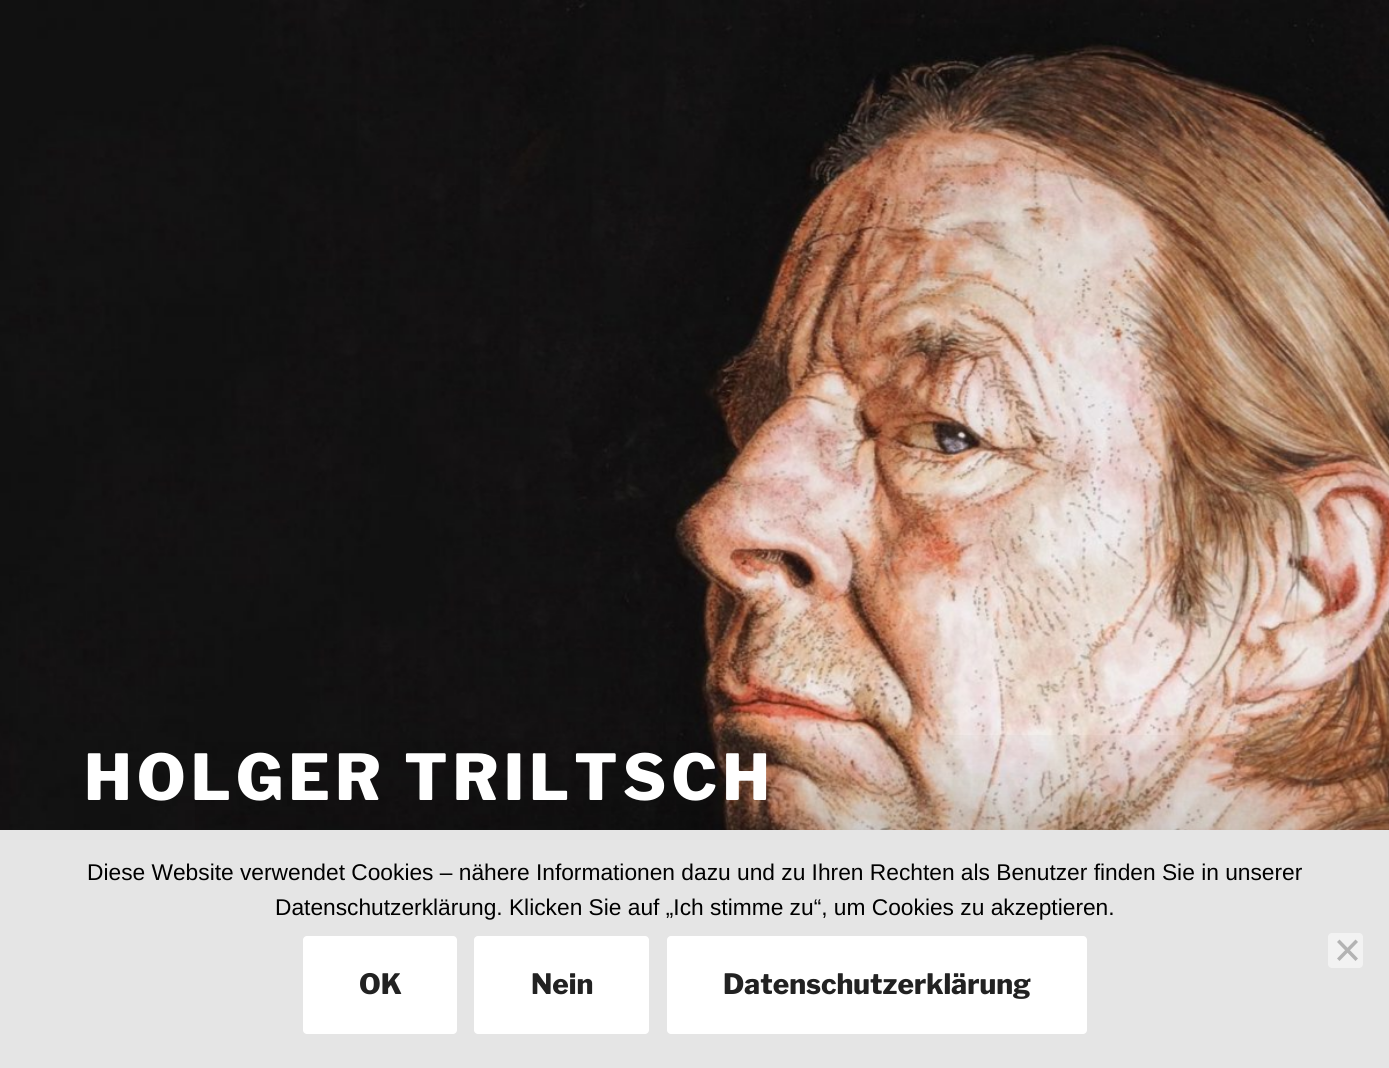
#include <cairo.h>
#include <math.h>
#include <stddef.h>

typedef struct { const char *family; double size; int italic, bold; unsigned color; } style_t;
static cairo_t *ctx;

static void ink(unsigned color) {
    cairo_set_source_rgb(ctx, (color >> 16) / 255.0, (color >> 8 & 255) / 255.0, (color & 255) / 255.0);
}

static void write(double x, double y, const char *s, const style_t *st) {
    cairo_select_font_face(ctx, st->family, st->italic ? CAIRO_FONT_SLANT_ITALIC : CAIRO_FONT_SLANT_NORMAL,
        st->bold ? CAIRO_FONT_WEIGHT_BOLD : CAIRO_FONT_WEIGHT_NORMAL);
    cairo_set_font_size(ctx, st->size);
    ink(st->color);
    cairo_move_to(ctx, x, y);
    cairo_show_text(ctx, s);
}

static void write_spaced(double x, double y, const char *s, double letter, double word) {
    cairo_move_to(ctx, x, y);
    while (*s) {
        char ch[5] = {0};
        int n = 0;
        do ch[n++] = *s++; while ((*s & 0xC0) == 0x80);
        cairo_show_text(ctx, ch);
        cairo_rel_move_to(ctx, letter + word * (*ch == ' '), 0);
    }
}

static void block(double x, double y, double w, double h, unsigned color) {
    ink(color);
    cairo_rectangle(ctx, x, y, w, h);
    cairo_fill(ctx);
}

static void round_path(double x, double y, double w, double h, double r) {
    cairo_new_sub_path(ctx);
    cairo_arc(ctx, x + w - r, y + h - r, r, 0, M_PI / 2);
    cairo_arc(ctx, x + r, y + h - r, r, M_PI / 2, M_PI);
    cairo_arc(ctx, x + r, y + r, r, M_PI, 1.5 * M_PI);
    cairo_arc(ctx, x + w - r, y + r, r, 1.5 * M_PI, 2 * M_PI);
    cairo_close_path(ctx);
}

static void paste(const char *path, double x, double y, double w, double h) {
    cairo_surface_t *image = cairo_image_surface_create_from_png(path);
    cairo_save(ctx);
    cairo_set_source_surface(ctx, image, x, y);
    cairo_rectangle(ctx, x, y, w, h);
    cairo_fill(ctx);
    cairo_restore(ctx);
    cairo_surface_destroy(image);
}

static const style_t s1 = {"Liberation Sans", 22.75, 0, 0, 0x000000};
static const style_t s2 = {"Libre Franklin Thin", 28, 0, 0, 0x222222};

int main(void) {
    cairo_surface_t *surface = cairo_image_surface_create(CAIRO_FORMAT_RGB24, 1389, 1068);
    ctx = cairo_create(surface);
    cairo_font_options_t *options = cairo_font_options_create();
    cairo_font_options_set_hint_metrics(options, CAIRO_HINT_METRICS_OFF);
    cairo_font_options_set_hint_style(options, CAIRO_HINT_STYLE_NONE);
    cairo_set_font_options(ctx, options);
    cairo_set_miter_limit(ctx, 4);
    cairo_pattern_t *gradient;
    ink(0xffffff);
    cairo_paint(ctx);
    paste("pic1.png", 0, 0, 1389, 830);
    gradient = cairo_pattern_create_linear(695, 716, 695, 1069);
    cairo_pattern_add_color_stop_rgba(gradient, 0, 0, 0, 0, 0);
    cairo_pattern_add_color_stop_rgba(gradient, 0.75, 0, 0, 0, 0.3);
    cairo_pattern_add_color_stop_rgba(gradient, 1, 0, 0, 0, 0.3);
    cairo_set_source(ctx, gradient);
    cairo_pattern_destroy(gradient);
    cairo_rectangle(ctx, 195, 735, 1194, 95);
    cairo_fill(ctx);
    cairo_select_font_face(ctx, "Libre Franklin Thin", CAIRO_FONT_SLANT_NORMAL, CAIRO_FONT_WEIGHT_NORMAL);
    cairo_set_font_size(ctx, 63);
    ink(0xffffff);
    write_spaced(84, 800, "HOLGER TRILTSCH", 5, 0);
    block(0, 830, 1389, 238, 0xe5e5e5);
    write(87, 880, "Diese Website verwendet Cookies – nähere Informationen dazu und zu Ihren Rechten als Benutzer finden Sie in unserer", &s1);
    write(275, 915, "Datenschutzerklärung. Klicken Sie auf „Ich stimme zu“, um Cookies zu akzeptieren.", &s1);
    ink(0xf2f2f2);
    round_path(1328, 933, 35, 35, 4);
    cairo_fill(ctx);
    ink(0xb3b3b3);
    cairo_new_path(ctx);
    cairo_move_to(ctx, 1355.5, 939.5);
    cairo_line_to(ctx, 1358, 942);
    cairo_line_to(ctx, 1339.5, 961);
    cairo_line_to(ctx, 1337, 958.5);
    cairo_close_path(ctx);
    cairo_fill(ctx);
    cairo_new_path(ctx);
    cairo_move_to(ctx, 1337, 942);
    cairo_line_to(ctx, 1339.5, 939.5);
    cairo_line_to(ctx, 1358, 958.5);
    cairo_line_to(ctx, 1355.5, 961);
    cairo_close_path(ctx);
    cairo_fill(ctx);
    ink(0xffffff);
    round_path(303, 936, 154, 98, 4);
    cairo_fill(ctx);
    write(359, 994, "OK", &s2);
    ink(0xffffff);
    round_path(474, 936, 175, 98, 4);
    cairo_fill(ctx);
    write(531, 994, "Nein", &s2);
    ink(0xffffff);
    round_path(667, 936, 420, 98, 4);
    cairo_fill(ctx);
    write(723, 994, "Datenschutzerklärung", &s2);
    cairo_surface_write_to_png(surface, "screenshot.png");
    cairo_font_options_destroy(options);
    cairo_destroy(ctx);
    cairo_surface_destroy(surface);
    return 0;
}
